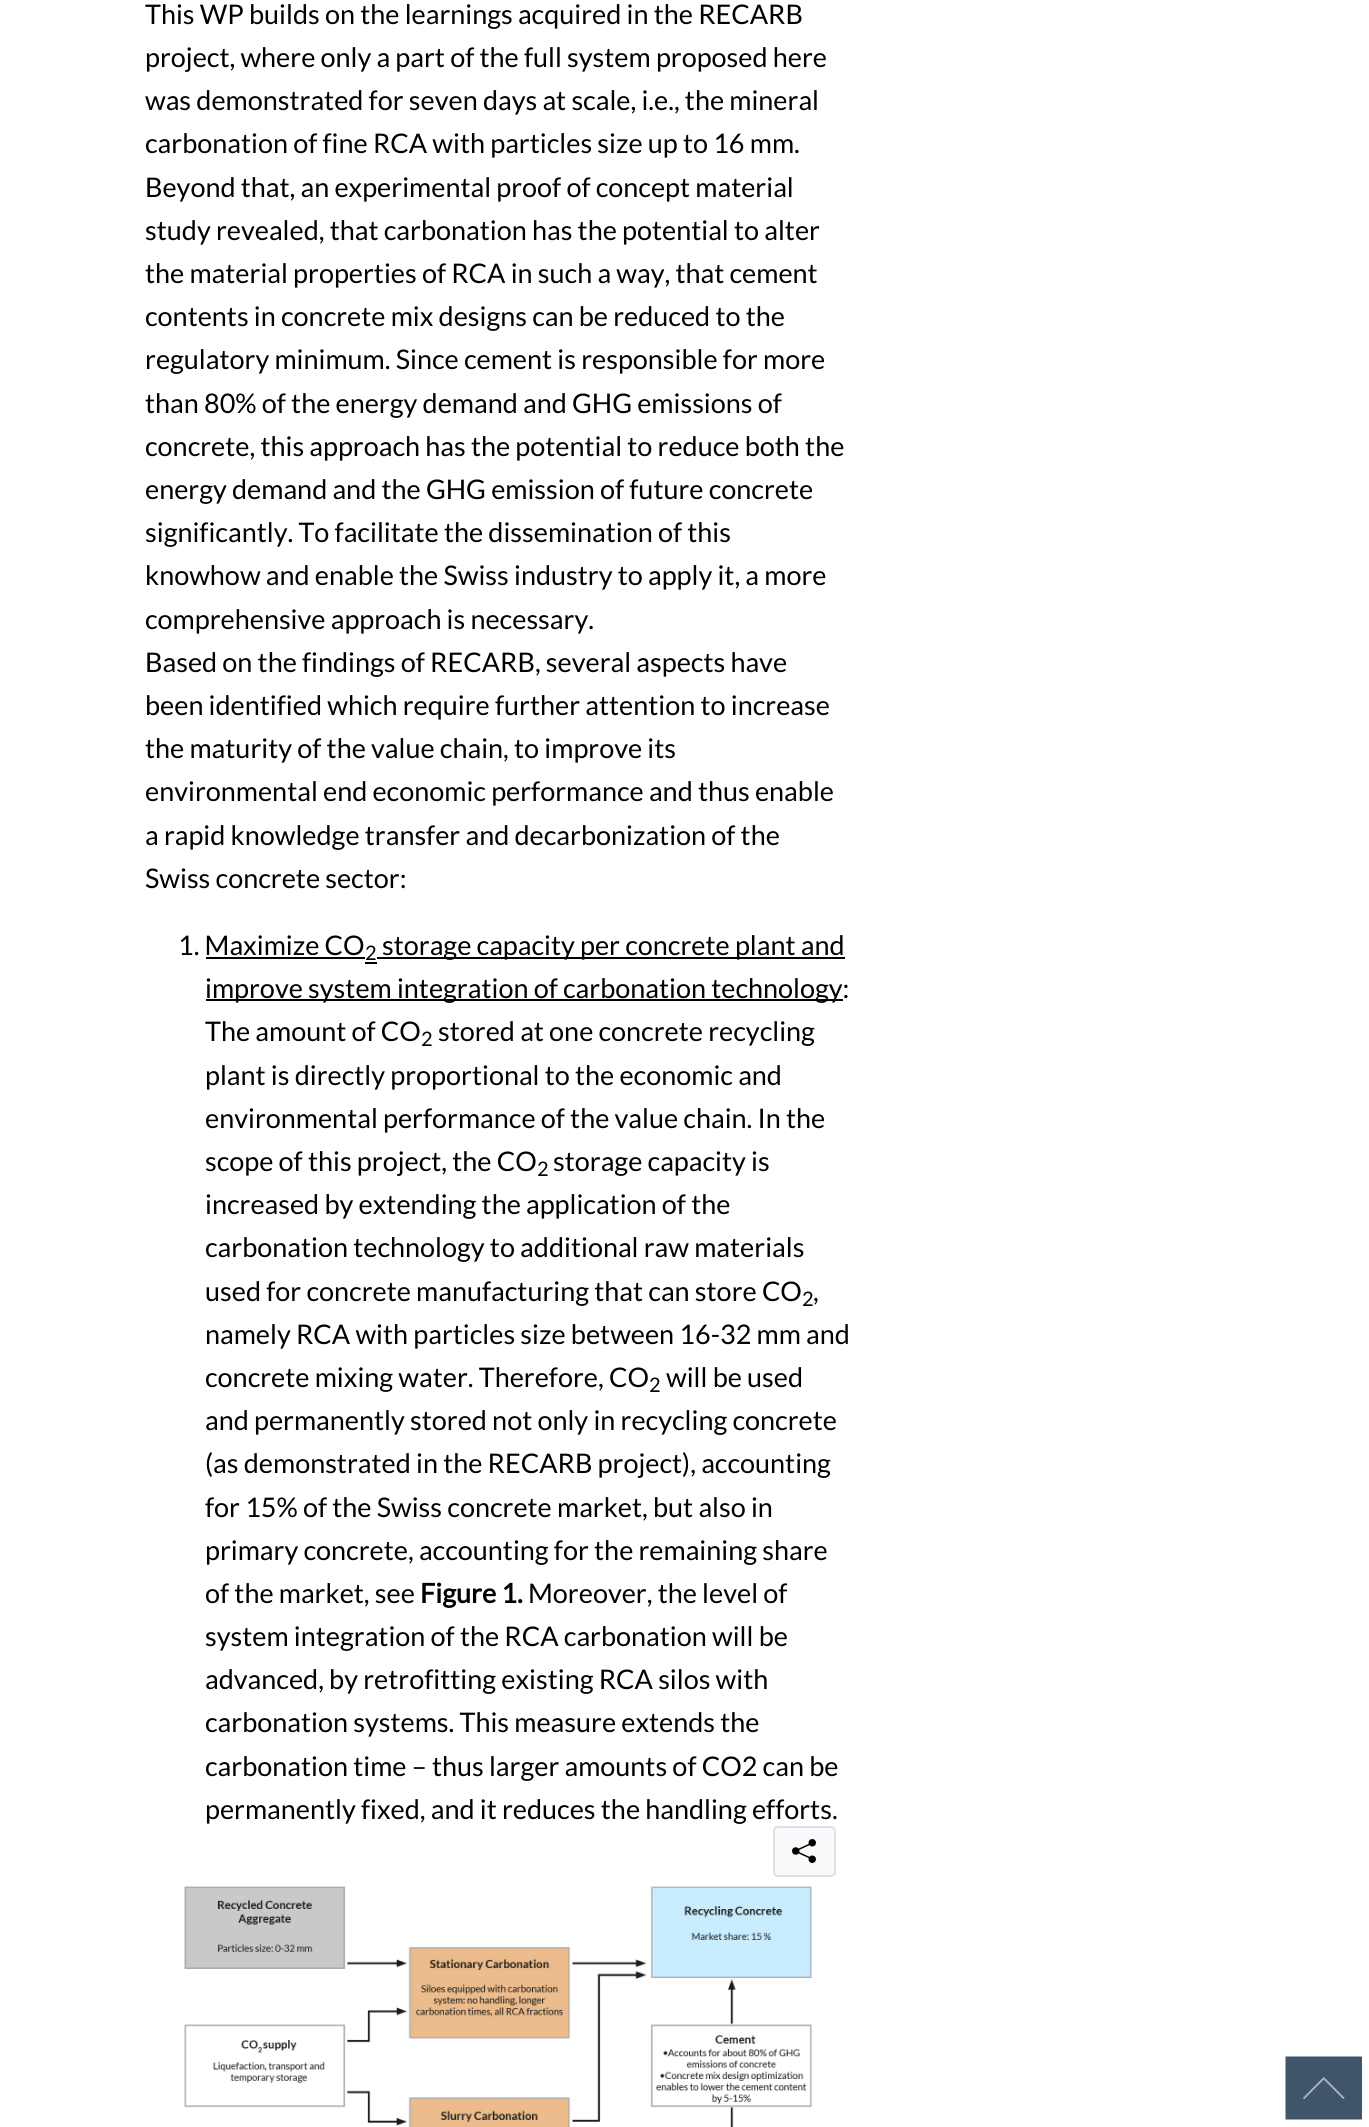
#include <cairo.h>
#include <math.h>
#include <stddef.h>

typedef struct { const char *family; double size; int italic, bold; unsigned color; } style_t;
static cairo_t *ctx;

static void ink(unsigned color) {
    cairo_set_source_rgb(ctx, (color >> 16) / 255.0, (color >> 8 & 255) / 255.0, (color & 255) / 255.0);
}

static void write(double x, double y, const char *s, const style_t *st) {
    cairo_select_font_face(ctx, st->family, st->italic ? CAIRO_FONT_SLANT_ITALIC : CAIRO_FONT_SLANT_NORMAL,
        st->bold ? CAIRO_FONT_WEIGHT_BOLD : CAIRO_FONT_WEIGHT_NORMAL);
    cairo_set_font_size(ctx, st->size);
    ink(st->color);
    cairo_move_to(ctx, x, y);
    cairo_show_text(ctx, s);
}

static void block(double x, double y, double w, double h, unsigned color) {
    ink(color);
    cairo_rectangle(ctx, x, y, w, h);
    cairo_fill(ctx);
}

static void round_path(double x, double y, double w, double h, double r) {
    cairo_new_sub_path(ctx);
    cairo_arc(ctx, x + w - r, y + h - r, r, 0, M_PI / 2);
    cairo_arc(ctx, x + r, y + h - r, r, M_PI / 2, M_PI);
    cairo_arc(ctx, x + r, y + r, r, M_PI, 1.5 * M_PI);
    cairo_arc(ctx, x + w - r, y + r, r, 1.5 * M_PI, 2 * M_PI);
    cairo_close_path(ctx);
}

static void paste(const char *path, double x, double y, double w, double h) {
    cairo_surface_t *image = cairo_image_surface_create_from_png(path);
    cairo_save(ctx);
    cairo_set_source_surface(ctx, image, x, y);
    cairo_rectangle(ctx, x, y, w, h);
    cairo_fill(ctx);
    cairo_restore(ctx);
    cairo_surface_destroy(image);
}

static const style_t s1 = {"Lato", 27, 0, 0, 0x000000};
static const style_t s2 = {"Lato", 20, 0, 0, 0x000000};
static const style_t s3 = {"Lato", 27, 0, 1, 0x000000};

int main(void) {
    cairo_surface_t *surface = cairo_image_surface_create(CAIRO_FORMAT_RGB24, 1369, 2127);
    ctx = cairo_create(surface);
    cairo_font_options_t *options = cairo_font_options_create();
    cairo_font_options_set_hint_metrics(options, CAIRO_HINT_METRICS_OFF);
    cairo_font_options_set_hint_style(options, CAIRO_HINT_STYLE_NONE);
    cairo_set_font_options(ctx, options);
    cairo_set_miter_limit(ctx, 4);
    ink(0xffffff);
    cairo_paint(ctx);
    write(145, 24, "This WP builds on the learnings acquired in the RECARB", &s1);
    write(145, 67, "project, where only a part of the full system proposed here", &s1);
    write(145, 110, "was demonstrated for seven days at scale, i.e., the mineral", &s1);
    write(145, 153, "carbonation of fine RCA with particles size up to 16 mm.", &s1);
    write(145, 197, "Beyond that, an experimental proof of concept material", &s1);
    write(145, 240, "study revealed, that carbonation has the potential to alter", &s1);
    write(145, 283, "the material properties of RCA in such a way, that cement", &s1);
    write(145, 326, "contents in concrete mix designs can be reduced to the", &s1);
    write(145, 369, "regulatory minimum. Since cement is responsible for more", &s1);
    write(145, 413, "than 80% of the energy demand and GHG emissions of", &s1);
    write(145, 456, "concrete, this approach has the potential to reduce both the", &s1);
    write(145, 499, "energy demand and the GHG emission of future concrete", &s1);
    write(145, 542, "significantly. To facilitate the dissemination of this", &s1);
    write(145, 585, "knowhow and enable the Swiss industry to apply it, a more", &s1);
    write(145, 629, "comprehensive approach is necessary.", &s1);
    write(145, 672, "Based on the findings of RECARB, several aspects have", &s1);
    write(145, 715, "been identified which require further attention to increase", &s1);
    write(145, 758, "the maturity of the value chain, to improve its", &s1);
    write(145, 801, "environmental end economic performance and thus enable", &s1);
    write(145, 845, "a rapid knowledge transfer and decarbonization of the", &s1);
    write(145, 888, "Swiss concrete sector:", &s1);
    write(178, 955, "1. Maximize CO", &s1);
    write(365, 960, "2", &s2);
    block(365, 962, 12, 2, 0x000000);
    block(377, 957, 468, 2, 0x000000);
    write(382, 955, "storage capacity per concrete plant and", &s1);
    block(206, 957, 159, 2, 0x000000);
    block(206, 999, 637, 2, 0x000000);
    write(205, 998, "improve system integration of carbonation technology:", &s1);
    write(205, 1041, "The amount of CO", &s1);
    write(421, 1046, "2", &s2);
    write(438, 1041, "stored at one concrete recycling", &s1);
    write(205, 1085, "plant is directly proportional to the economic and", &s1);
    write(205, 1128, "environmental performance of the value chain. In the", &s1);
    write(205, 1171, "scope of this project, the CO", &s1);
    write(537, 1176, "2", &s2);
    write(553, 1171, "storage capacity is", &s1);
    write(205, 1214, "increased by extending the application of the", &s1);
    write(205, 1257, "carbonation technology to additional raw materials", &s1);
    write(205, 1301, "used for concrete manufacturing that can store CO", &s1);
    write(802, 1306, "2", &s2);
    write(813, 1301, ",", &s1);
    write(205, 1344, "namely RCA with particles size between 16-32 mm and", &s1);
    write(205, 1387, "concrete mixing water. Therefore, CO", &s1);
    write(649, 1392, "2", &s2);
    write(666, 1387, "will be used", &s1);
    write(205, 1430, "and permanently stored not only in recycling concrete", &s1);
    write(205, 1473, "(as demonstrated in the RECARB project), accounting", &s1);
    write(205, 1517, "for 15% of the Swiss concrete market, but also in", &s1);
    write(205, 1560, "primary concrete, accounting for the remaining share", &s1);
    write(205, 1603, "of the market, see", &s1);
    write(420, 1603, "Figure 1.", &s3);
    write(528, 1603, "Moreover, the level of", &s1);
    write(205, 1646, "system integration of the RCA carbonation will be", &s1);
    write(205, 1689, "advanced, by retrofitting existing RCA silos with", &s1);
    write(205, 1732, "carbonation systems. This measure extends the", &s1);
    write(205, 1776, "carbonation time – thus larger amounts of CO2 can be", &s1);
    write(205, 1819, "permanently fixed, and it reduces the handling efforts.", &s1);
    ink(0xf8f9fa);
    round_path(774, 1827, 61, 49, 4);
    cairo_fill_preserve(ctx);
    ink(0xdee2e6);
    cairo_stroke(ctx);
    paste("pic1.png", 792, 1839, 24, 24);
    paste("pic2.png", 184, 1886, 628, 241);
    paste("pic3.png", 1285, 2056, 77, 64);
    cairo_surface_write_to_png(surface, "screenshot.png");
    cairo_font_options_destroy(options);
    cairo_destroy(ctx);
    cairo_surface_destroy(surface);
    return 0;
}
